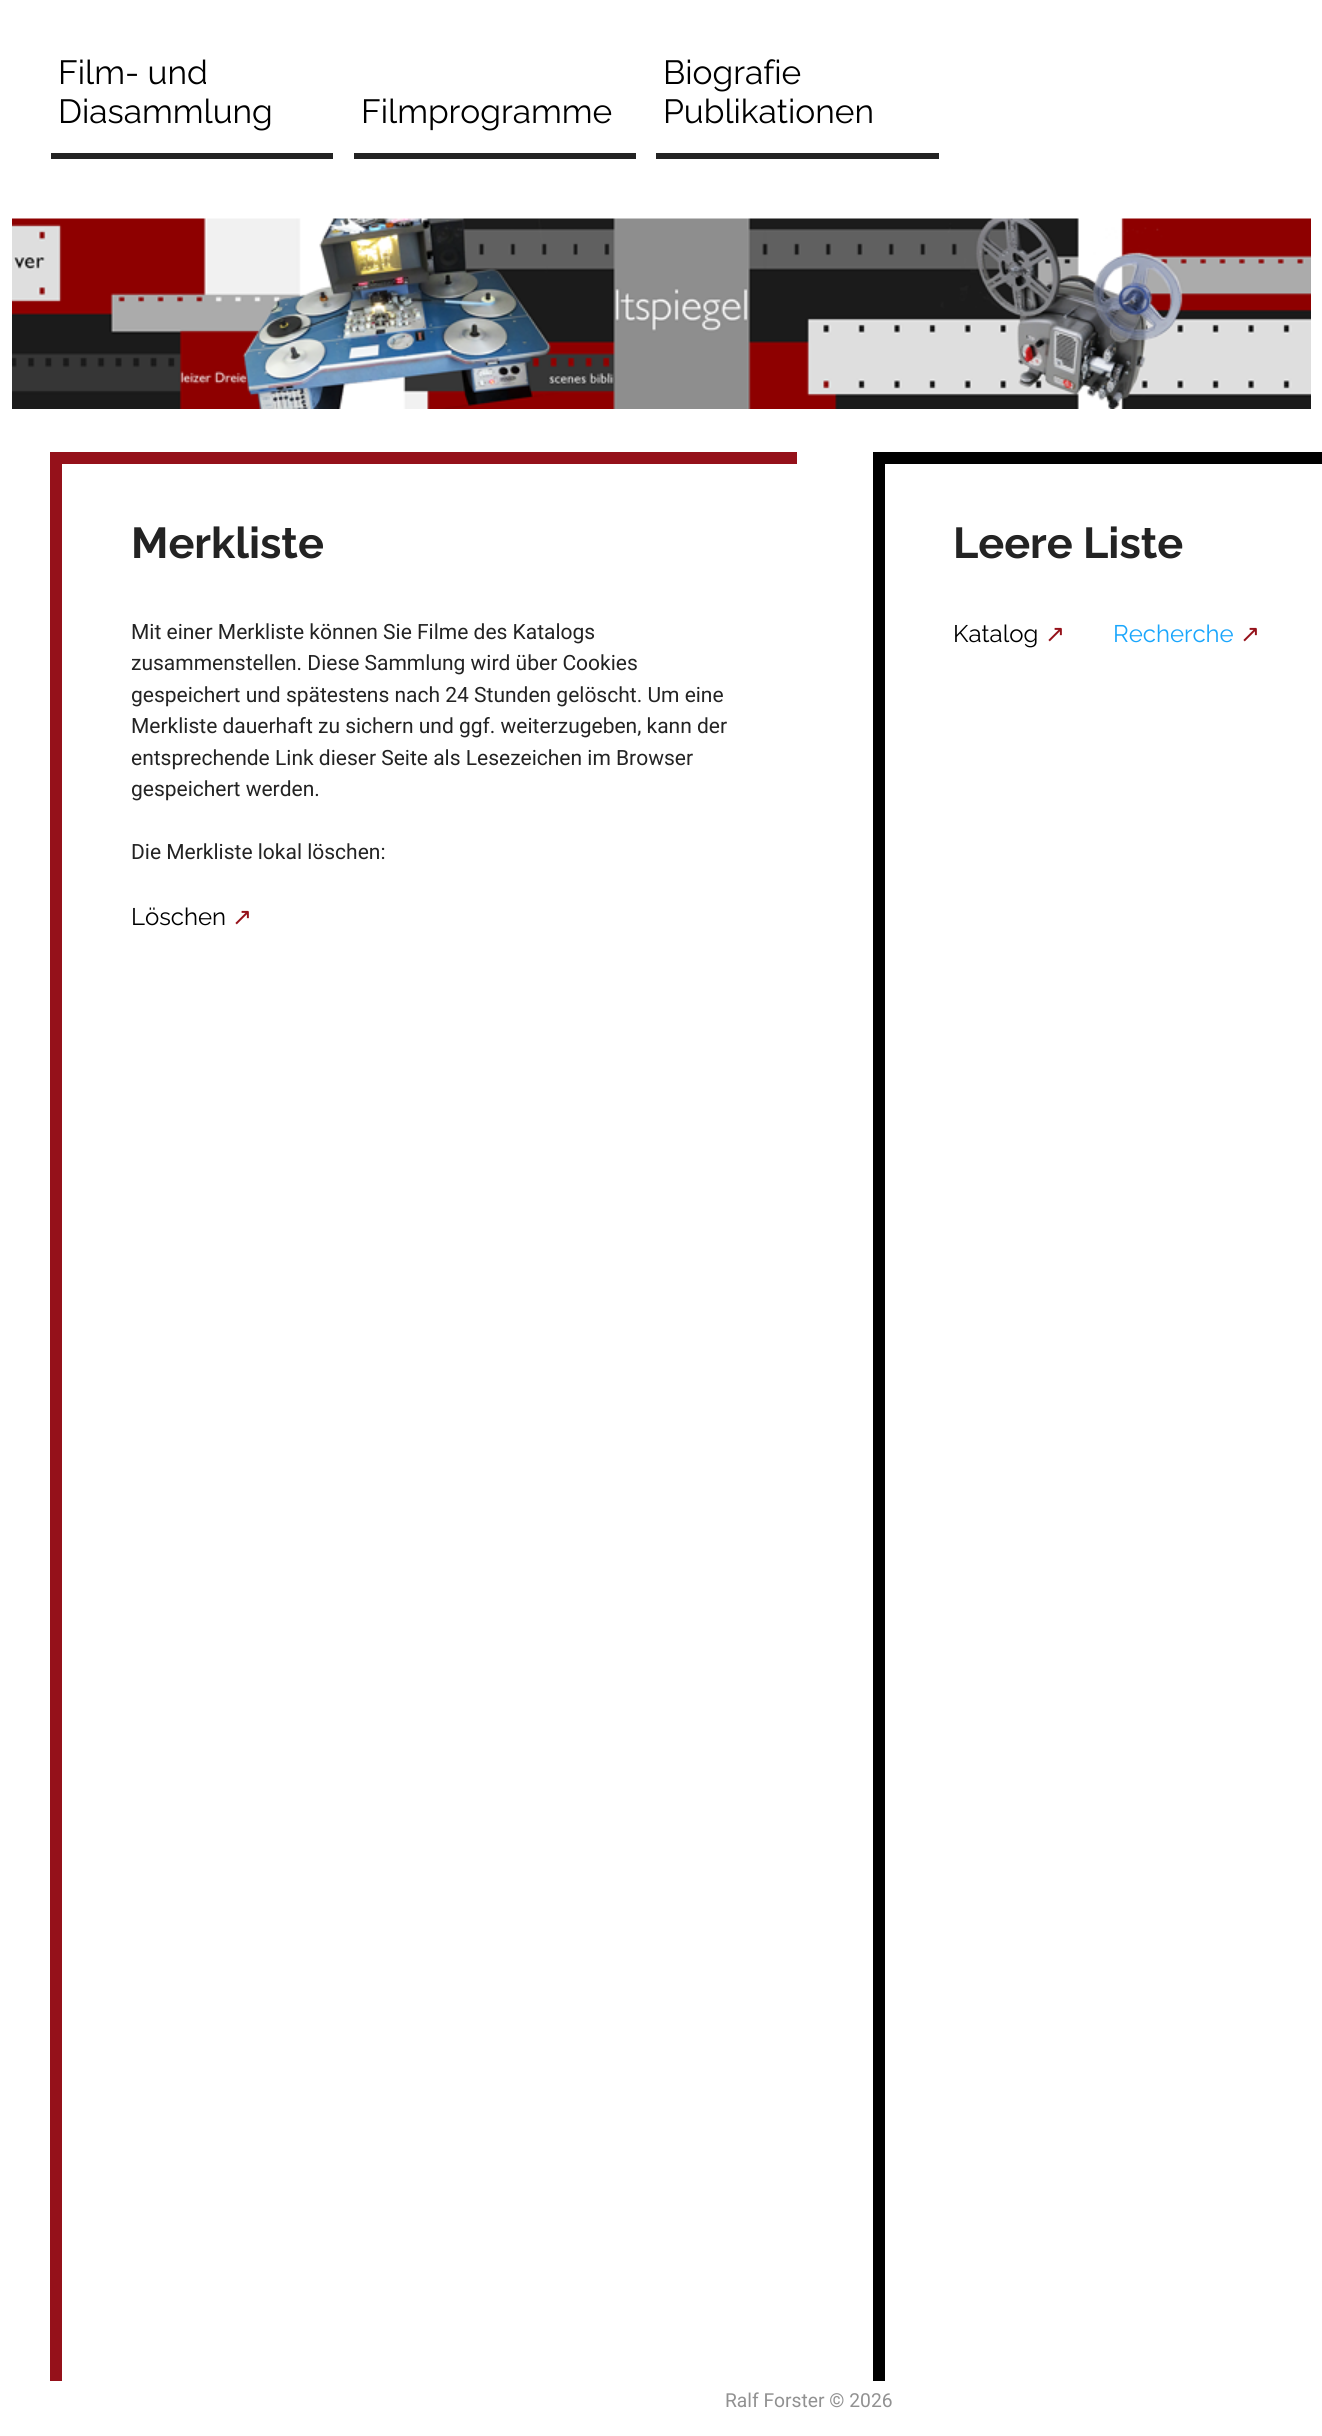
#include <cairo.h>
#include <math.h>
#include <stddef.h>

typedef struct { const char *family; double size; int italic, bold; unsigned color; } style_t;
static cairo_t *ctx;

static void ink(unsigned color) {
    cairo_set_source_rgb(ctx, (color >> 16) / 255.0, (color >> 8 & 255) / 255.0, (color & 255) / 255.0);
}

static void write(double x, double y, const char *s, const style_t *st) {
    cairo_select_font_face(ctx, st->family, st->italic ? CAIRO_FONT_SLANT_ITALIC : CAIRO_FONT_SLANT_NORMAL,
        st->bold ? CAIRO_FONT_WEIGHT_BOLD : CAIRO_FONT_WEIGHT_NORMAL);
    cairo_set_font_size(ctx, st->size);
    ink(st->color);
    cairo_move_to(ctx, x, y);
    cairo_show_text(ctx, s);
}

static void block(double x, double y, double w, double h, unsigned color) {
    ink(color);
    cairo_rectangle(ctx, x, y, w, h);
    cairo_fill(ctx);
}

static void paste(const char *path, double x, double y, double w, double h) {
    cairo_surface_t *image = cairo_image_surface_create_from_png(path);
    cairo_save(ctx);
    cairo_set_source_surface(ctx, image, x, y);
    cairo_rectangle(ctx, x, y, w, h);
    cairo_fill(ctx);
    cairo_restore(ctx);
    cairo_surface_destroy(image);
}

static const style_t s1 = {"Raleway", 33.5, 0, 0, 0x000000};
static const style_t s2 = {"Raleway", 43.25, 0, 1, 0x232323};
static const style_t s3 = {"Roboto", 21, 0, 0, 0x232323};
static const style_t s4 = {"Raleway", 24, 0, 0, 0x000000};
static const style_t s5 = {"DejaVu Sans", 24, 0, 0, 0x95111a};
static const style_t s6 = {"Raleway", 24, 0, 0, 0x1aa6fc};
static const style_t s7 = {"Roboto", 19.25, 0, 0, 0x919191};

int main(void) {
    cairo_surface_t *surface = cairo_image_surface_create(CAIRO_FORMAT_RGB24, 1322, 2436);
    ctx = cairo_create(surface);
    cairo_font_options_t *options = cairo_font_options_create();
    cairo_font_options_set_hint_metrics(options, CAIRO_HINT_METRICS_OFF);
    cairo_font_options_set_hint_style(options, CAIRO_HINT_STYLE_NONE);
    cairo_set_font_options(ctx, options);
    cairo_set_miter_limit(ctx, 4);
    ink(0xffffff);
    cairo_paint(ctx);
    block(51, 153, 282, 6, 0x232323);
    write(58, 84, "Film- und", &s1);
    write(58, 123, "Diasammlung", &s1);
    block(354, 153, 282, 6, 0x232323);
    write(361, 123, "Filmprogramme", &s1);
    block(656, 153, 283, 6, 0x232323);
    write(663, 84, "Biografie", &s1);
    write(663, 123, "Publikationen", &s1);
    paste("pic1.png", 12, 218, 1299, 191);
    block(62, 452, 735, 12, 0x95111a);
    block(50, 452, 12, 1929, 0x95111a);
    write(131, 558, "Merkliste", &s2);
    write(131, 639, "Mit einer Merkliste können Sie Filme des Katalogs", &s3);
    write(131, 670, "zusammenstellen. Diese Sammlung wird über Cookies", &s3);
    write(131, 702, "gespeichert und spätestens nach 24 Stunden gelöscht. Um eine", &s3);
    write(131, 733, "Merkliste dauerhaft zu sichern und ggf. weiterzugeben, kann der", &s3);
    write(131, 765, "entsprechende Link dieser Seite als Lesezeichen im Browser", &s3);
    write(131, 796, "gespeichert werden.", &s3);
    write(131, 859, "Die Merkliste lokal löschen:", &s3);
    write(131, 925, "Löschen", &s4);
    write(232, 925, "↗", &s5);
    block(885, 452, 437, 12, 0x000000);
    block(873, 452, 12, 1929, 0x000000);
    write(953, 558, "Leere Liste", &s2);
    write(953, 642, "Katalog", &s4);
    write(1045, 642, "↗", &s5);
    write(1113, 642, "Recherche", &s6);
    write(1240, 642, "↗", &s5);
    write(725, 2407, "Ralf Forster © 2026", &s7);
    cairo_surface_write_to_png(surface, "screenshot.png");
    cairo_font_options_destroy(options);
    cairo_destroy(ctx);
    cairo_surface_destroy(surface);
    return 0;
}
